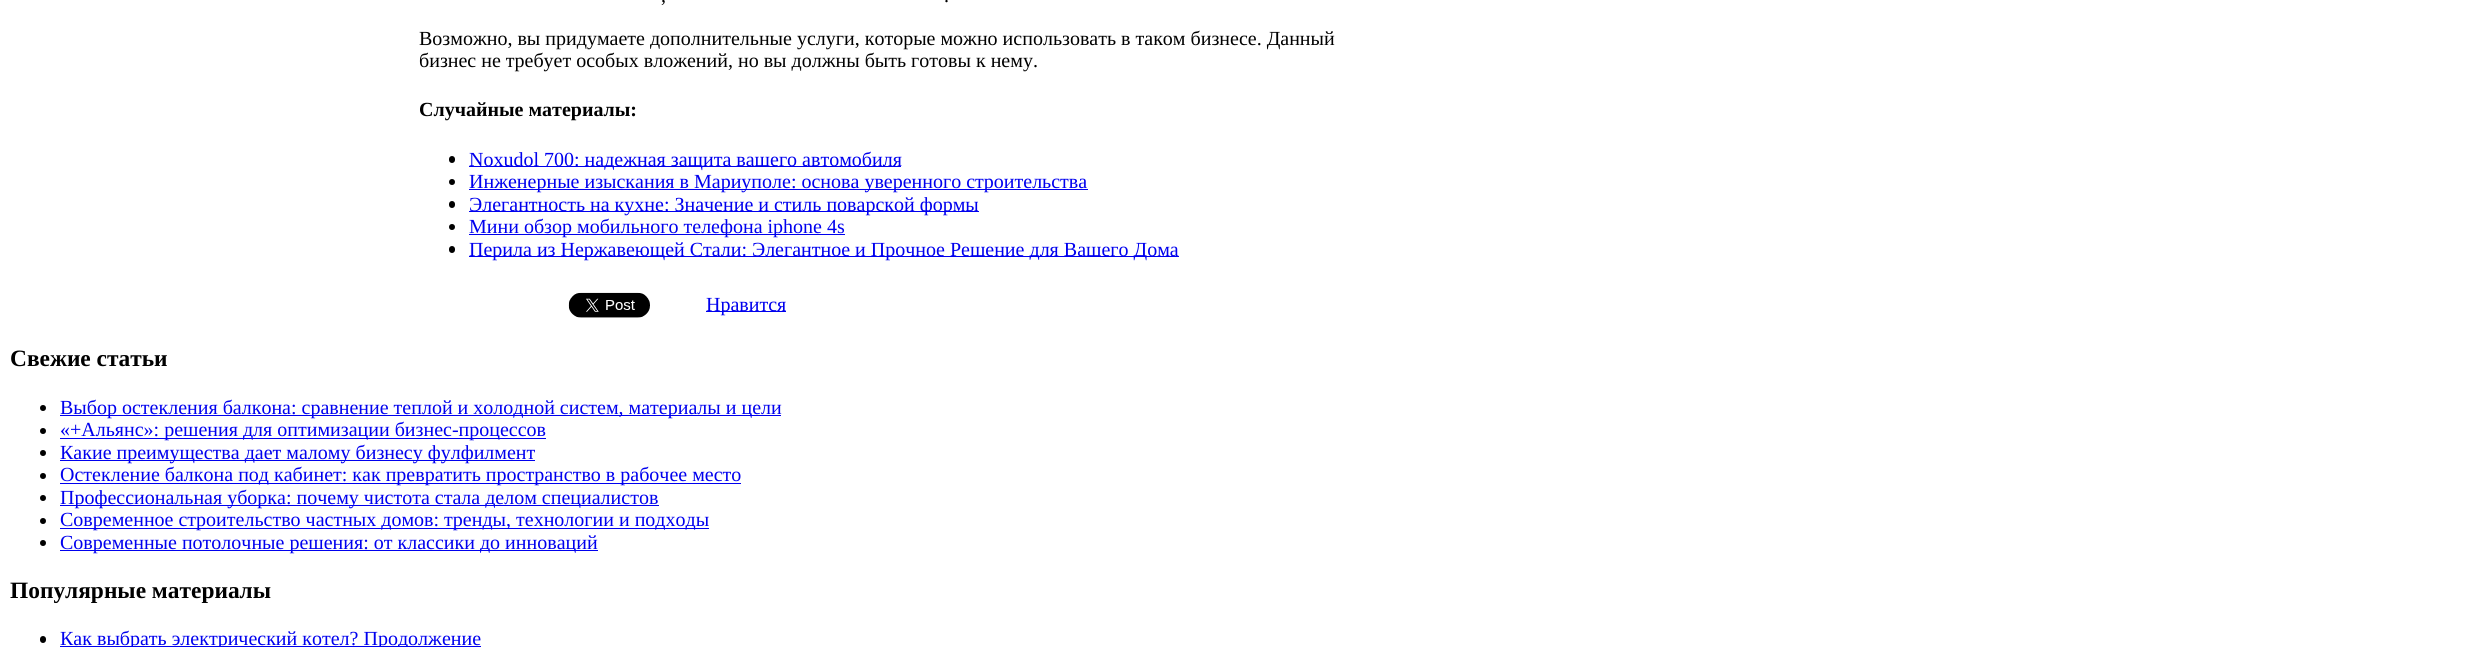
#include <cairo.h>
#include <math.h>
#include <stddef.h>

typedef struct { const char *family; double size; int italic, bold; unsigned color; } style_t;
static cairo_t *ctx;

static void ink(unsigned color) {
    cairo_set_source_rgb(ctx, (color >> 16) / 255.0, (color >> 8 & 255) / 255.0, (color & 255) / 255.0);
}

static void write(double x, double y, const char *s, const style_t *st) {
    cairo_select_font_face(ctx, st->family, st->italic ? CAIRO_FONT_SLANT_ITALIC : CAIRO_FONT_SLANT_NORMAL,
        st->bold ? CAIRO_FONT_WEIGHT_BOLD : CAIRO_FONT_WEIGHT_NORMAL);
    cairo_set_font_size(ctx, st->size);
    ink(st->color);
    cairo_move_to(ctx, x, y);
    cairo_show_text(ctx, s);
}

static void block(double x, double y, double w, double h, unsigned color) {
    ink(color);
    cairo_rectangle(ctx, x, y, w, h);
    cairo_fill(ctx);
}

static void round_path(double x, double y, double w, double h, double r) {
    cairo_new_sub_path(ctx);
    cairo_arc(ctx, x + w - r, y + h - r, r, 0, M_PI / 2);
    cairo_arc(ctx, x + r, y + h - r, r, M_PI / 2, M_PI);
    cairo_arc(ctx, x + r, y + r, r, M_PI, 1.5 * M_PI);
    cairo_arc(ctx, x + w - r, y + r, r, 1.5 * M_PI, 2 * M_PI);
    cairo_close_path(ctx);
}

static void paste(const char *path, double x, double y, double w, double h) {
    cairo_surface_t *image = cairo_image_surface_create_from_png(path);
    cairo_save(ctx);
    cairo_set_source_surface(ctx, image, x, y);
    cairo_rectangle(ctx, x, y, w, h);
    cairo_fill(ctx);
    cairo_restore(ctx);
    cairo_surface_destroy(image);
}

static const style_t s1 = {"Liberation Serif", 20, 0, 0, 0x000000};
static const style_t s2 = {"Liberation Serif", 20, 0, 1, 0x000000};
static const style_t s3 = {"Liberation Serif", 20, 0, 0, 0x0000ee};
static const style_t s4 = {"Liberation Serif", 23.4, 0, 1, 0x000000};

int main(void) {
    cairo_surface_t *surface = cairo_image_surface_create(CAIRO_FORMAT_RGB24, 2482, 647);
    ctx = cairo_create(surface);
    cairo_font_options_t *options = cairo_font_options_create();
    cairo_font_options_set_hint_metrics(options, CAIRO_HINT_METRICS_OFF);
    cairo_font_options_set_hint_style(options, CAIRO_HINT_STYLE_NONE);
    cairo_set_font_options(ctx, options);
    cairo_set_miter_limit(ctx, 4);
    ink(0xffffff);
    cairo_paint(ctx);
    write(661, 2, ",", &s1);
    write(944, 2, ".", &s1);
    write(419, 45, "Возможно, вы придумаете дополнительные услуги, которые можно использовать в таком бизнесе. Данный", &s1);
    write(419, 67, "бизнес не требует особых вложений, но вы должны быть готовы к нему.", &s1);
    write(419, 116, "Случайные материалы:", &s2);
    round_path(449, 156, 6, 7, 3);
    cairo_fill(ctx);
    block(469, 166, 432, 1, 0x0000ee);
    write(469, 166, "Noxudol 700: надежная защита вашего автомобиля", &s3);
    ink(0x000000);
    cairo_new_path(ctx);
    cairo_arc(ctx, 452, 182, 3, 0, 2 * M_PI);
    cairo_fill(ctx);
    block(469, 189, 619, 1, 0x0000ee);
    write(469, 188, "Инженерные изыскания в Мариуполе: основа уверенного строительства", &s3);
    ink(0x000000);
    round_path(449, 201, 6, 7, 3);
    cairo_fill(ctx);
    block(469, 211, 510, 1, 0x0000ee);
    write(469, 211, "Элегантность на кухне: Значение и стиль поварской формы", &s3);
    ink(0x000000);
    cairo_new_path(ctx);
    cairo_arc(ctx, 452, 227, 3, 0, 2 * M_PI);
    cairo_fill(ctx);
    block(469, 234, 376, 1, 0x0000ee);
    write(469, 233, "Мини обзор мобильного телефона iphone 4s", &s3);
    ink(0x000000);
    round_path(449, 246, 6, 7, 3);
    cairo_fill(ctx);
    block(469, 256, 710, 1, 0x0000ee);
    write(469, 256, "Перила из Нержавеющей Стали: Элегантное и Прочное Решение для Вашего Дома", &s3);
    paste("pic1.png", 568, 292, 82, 26);
    block(706, 311, 80, 1, 0x0000ee);
    write(706, 311, "Нравится", &s3);
    write(10, 366, "Свежие статьи", &s4);
    cairo_new_path(ctx);
    cairo_arc(ctx, 43, 408, 3, 0, 2 * M_PI);
    cairo_fill(ctx);
    block(60, 415, 721, 1, 0x0000ee);
    write(60, 414, "Выбор остекления балкона: сравнение теплой и холодной систем, материалы и цели", &s3);
    ink(0x000000);
    cairo_new_path(ctx);
    cairo_arc(ctx, 43, 431, 3, 0, 2 * M_PI);
    cairo_fill(ctx);
    block(60, 438, 486, 1, 0x0000ee);
    write(60, 436, "«+Альянс»: решения для оптимизации бизнес-процессов", &s3);
    ink(0x000000);
    cairo_new_path(ctx);
    cairo_arc(ctx, 43, 453, 3, 0, 2 * M_PI);
    cairo_fill(ctx);
    block(60, 460, 475, 1, 0x0000ee);
    write(60, 459, "Какие преимущества дает малому бизнесу фулфилмент", &s3);
    ink(0x000000);
    cairo_new_path(ctx);
    cairo_arc(ctx, 43, 476, 3, 0, 2 * M_PI);
    cairo_fill(ctx);
    block(60, 483, 681, 1, 0x0000ee);
    write(60, 481, "Остекление балкона под кабинет: как превратить пространство в рабочее место", &s3);
    ink(0x000000);
    cairo_new_path(ctx);
    cairo_arc(ctx, 43, 498, 3, 0, 2 * M_PI);
    cairo_fill(ctx);
    block(60, 505, 599, 1, 0x0000ee);
    write(60, 504, "Профессиональная уборка: почему чистота стала делом специалистов", &s3);
    ink(0x000000);
    cairo_new_path(ctx);
    cairo_arc(ctx, 43, 521, 3, 0, 2 * M_PI);
    cairo_fill(ctx);
    block(60, 528, 649, 1, 0x0000ee);
    write(60, 526, "Современное строительство частных домов: тренды, технологии и подходы", &s3);
    ink(0x000000);
    cairo_new_path(ctx);
    cairo_arc(ctx, 43, 543, 3, 0, 2 * M_PI);
    cairo_fill(ctx);
    block(60, 550, 538, 1, 0x0000ee);
    write(60, 549, "Современные потолочные решения: от классики до инноваций", &s3);
    write(10, 598, "Популярные материалы", &s4);
    round_path(40, 636, 6, 7, 3);
    cairo_fill(ctx);
    block(60, 646, 421, 1, 0x0000ee);
    write(60, 645, "Как выбрать электрический котел? Продолжение", &s3);
    cairo_surface_write_to_png(surface, "screenshot.png");
    cairo_font_options_destroy(options);
    cairo_destroy(ctx);
    cairo_surface_destroy(surface);
    return 0;
}
